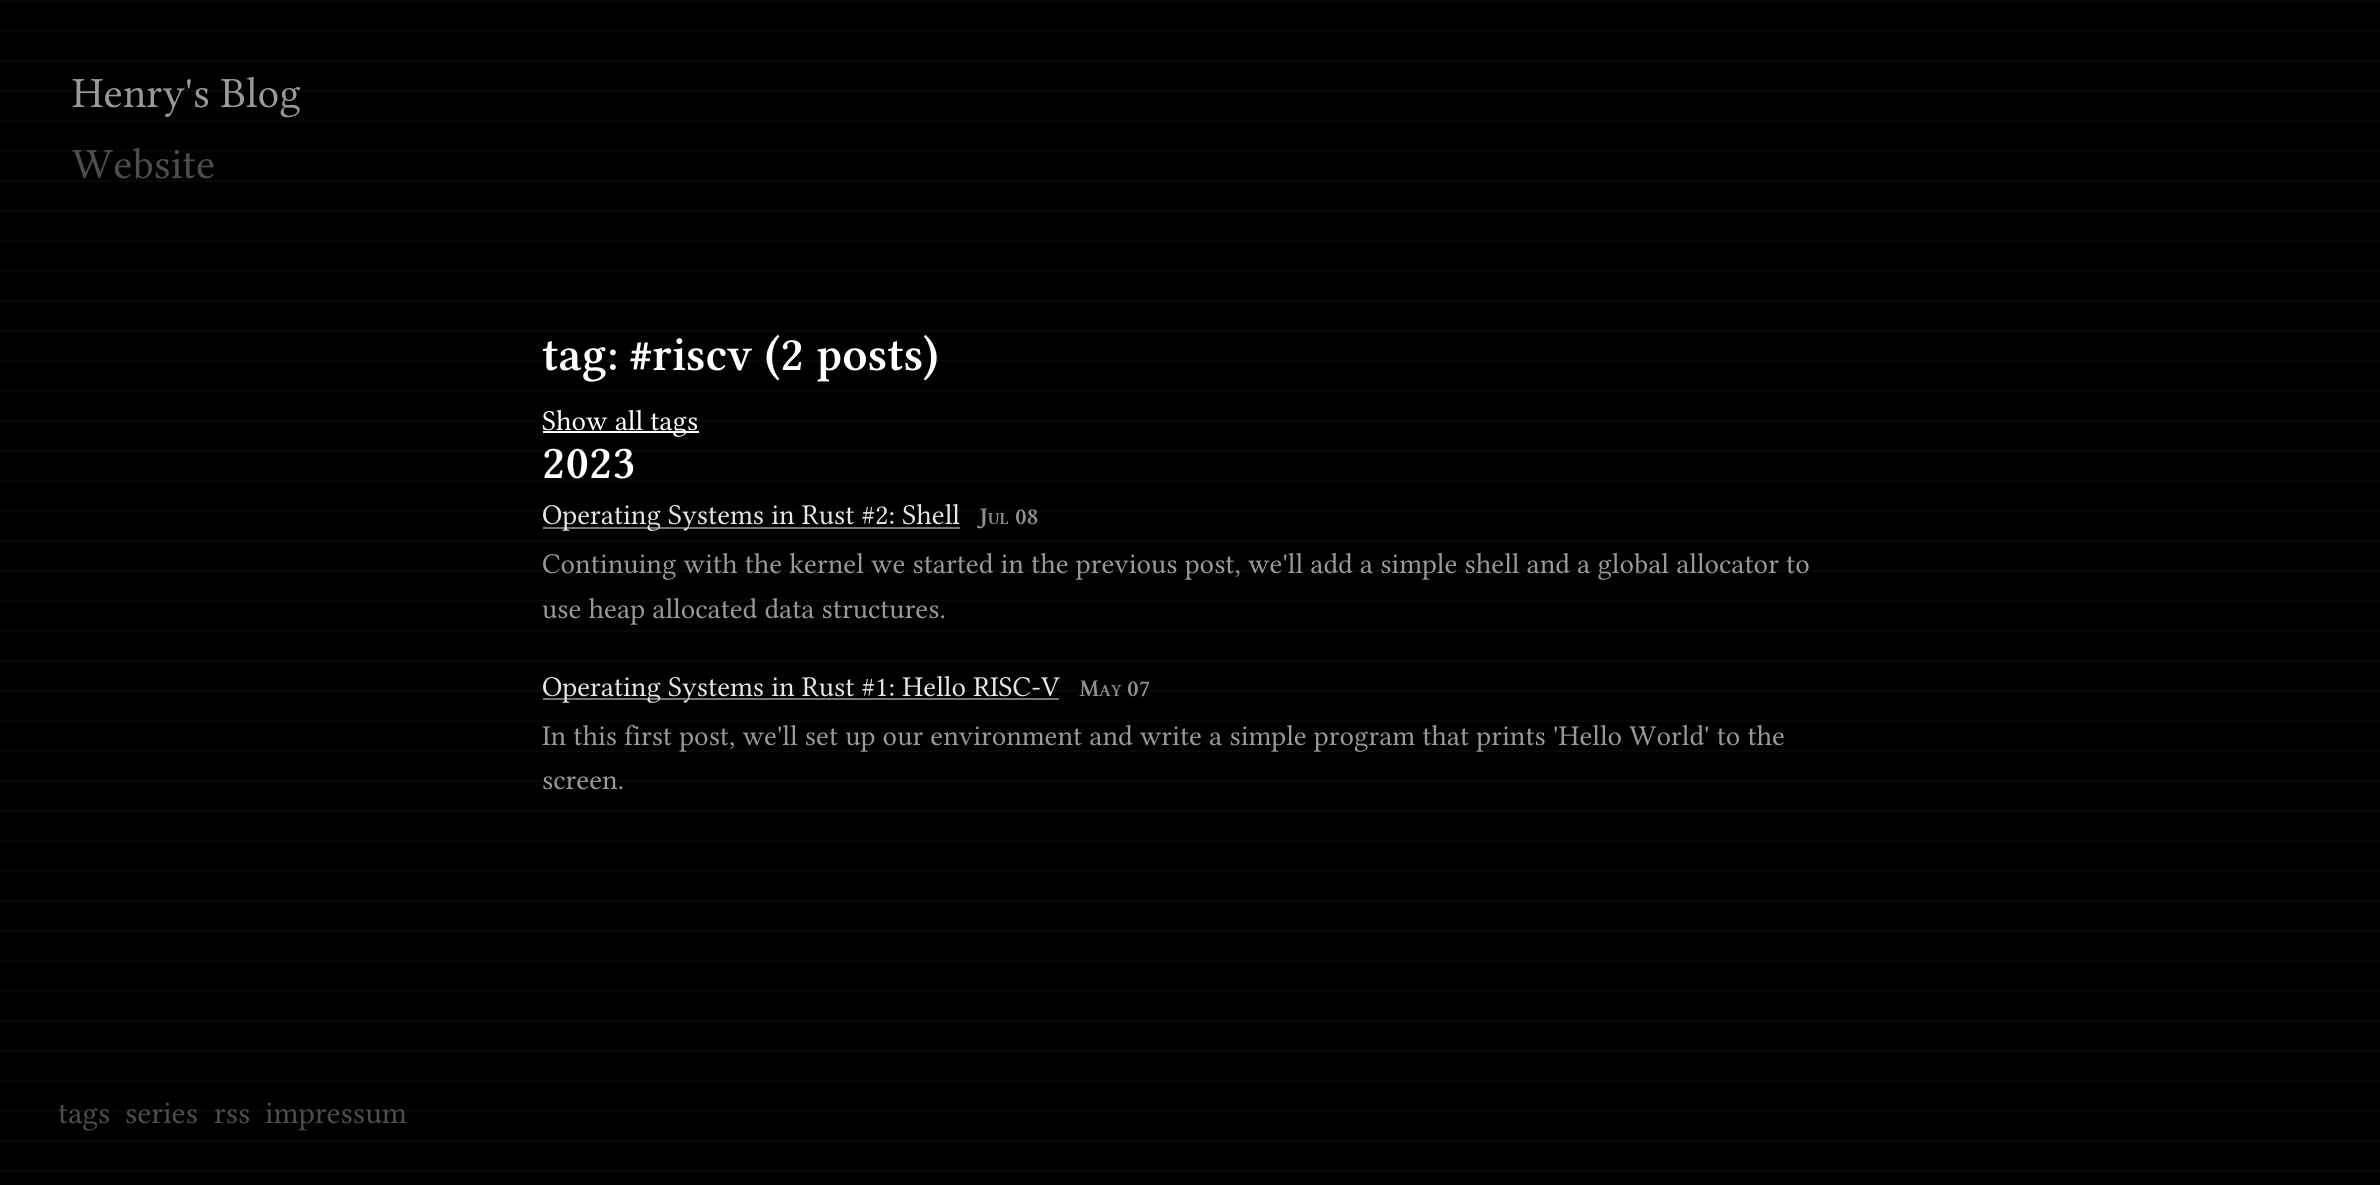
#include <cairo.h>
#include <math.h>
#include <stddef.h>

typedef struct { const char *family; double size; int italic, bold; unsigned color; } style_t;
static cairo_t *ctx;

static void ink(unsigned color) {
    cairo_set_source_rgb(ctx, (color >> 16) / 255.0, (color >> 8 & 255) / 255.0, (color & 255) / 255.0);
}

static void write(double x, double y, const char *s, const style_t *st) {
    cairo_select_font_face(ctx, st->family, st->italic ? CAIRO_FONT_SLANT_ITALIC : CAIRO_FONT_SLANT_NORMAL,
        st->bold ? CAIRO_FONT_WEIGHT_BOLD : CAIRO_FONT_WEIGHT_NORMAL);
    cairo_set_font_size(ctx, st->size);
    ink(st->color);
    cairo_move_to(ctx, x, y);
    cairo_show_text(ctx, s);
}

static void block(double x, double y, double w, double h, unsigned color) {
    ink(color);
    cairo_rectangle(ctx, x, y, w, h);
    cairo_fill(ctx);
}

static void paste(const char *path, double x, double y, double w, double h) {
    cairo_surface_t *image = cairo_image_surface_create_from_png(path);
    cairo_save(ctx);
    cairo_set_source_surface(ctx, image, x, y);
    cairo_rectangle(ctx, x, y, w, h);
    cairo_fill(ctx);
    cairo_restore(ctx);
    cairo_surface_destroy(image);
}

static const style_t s1 = {"Libertinus Serif", 43.25, 0, 0, 0x999999};
static const style_t s2 = {"Libertinus Serif", 43.25, 0, 0, 0x4d4d4d};
static const style_t s3 = {"Libertinus Serif SemiBold", 49, 0, 0, 0xffffff};
static const style_t s4 = {"Libertinus Serif", 28.8, 0, 0, 0xffffff};
static const style_t s5 = {"Libertinus Serif SemiBold", 48, 0, 0, 0xffffff};
static const style_t s6 = {"Libertinus Serif", 28.8, 0, 0, 0xe6e6e6};
static const style_t s7 = {"Libertinus Serif SemiBold", 24, 0, 0, 0x909090};
static const style_t s8 = {"Libertinus Serif SemiBold", 17, 0, 0, 0x909090};
static const style_t s9 = {"Libertinus Serif", 28.8, 0, 0, 0x999999};
static const style_t s10 = {"Libertinus Serif", 31.5, 0, 0, 0x4d4d4d};

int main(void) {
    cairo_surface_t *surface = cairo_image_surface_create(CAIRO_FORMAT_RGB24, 2380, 1185);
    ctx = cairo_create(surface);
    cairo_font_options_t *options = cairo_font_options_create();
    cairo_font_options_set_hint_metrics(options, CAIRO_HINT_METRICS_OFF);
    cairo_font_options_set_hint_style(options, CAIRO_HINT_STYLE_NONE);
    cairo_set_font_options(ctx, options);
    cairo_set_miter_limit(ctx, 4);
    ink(0x000000);
    cairo_paint(ctx);
    paste("pic1.png", 0, 0, 2380, 1172);
    write(72, 107, "Henry's Blog", &s1);
    write(72, 178, "Website", &s2);
    write(542, 370, "tag: #riscv (2 posts)", &s3);
    block(543, 431, 156, 2, 0xffffff);
    write(542, 430, "Show all tags", &s4);
    write(542, 478, "2023", &s5);
    block(543, 527, 417, 2, 0x737373);
    write(542, 524, "Operating Systems in Rust #2: Shell", &s6);
    write(979, 524, "J", &s7);
    write(988, 524, "UL", &s8);
    write(1015, 524, "08", &s7);
    write(542, 573, "Continuing with the kernel we started in the previous post, we'll add a simple shell and a global allocator to", &s9);
    write(542, 618, "use heap allocated data structures.", &s9);
    block(543, 698, 516, 2, 0x737373);
    write(542, 696, "Operating Systems in Rust #1: Hello RISC-V", &s6);
    write(1079, 696, "M", &s7);
    write(1099, 696, "AY", &s8);
    write(1127, 696, "07", &s7);
    write(542, 745, "In this first post, we'll set up our environment and write a simple program that prints 'Hello World' to the", &s9);
    write(542, 789, "screen.", &s9);
    write(58, 1123, "tags", &s10);
    write(125, 1123, "series", &s10);
    write(214, 1123, "rss", &s10);
    write(265, 1123, "impressum", &s10);
    cairo_surface_write_to_png(surface, "screenshot.png");
    cairo_font_options_destroy(options);
    cairo_destroy(ctx);
    cairo_surface_destroy(surface);
    return 0;
}
